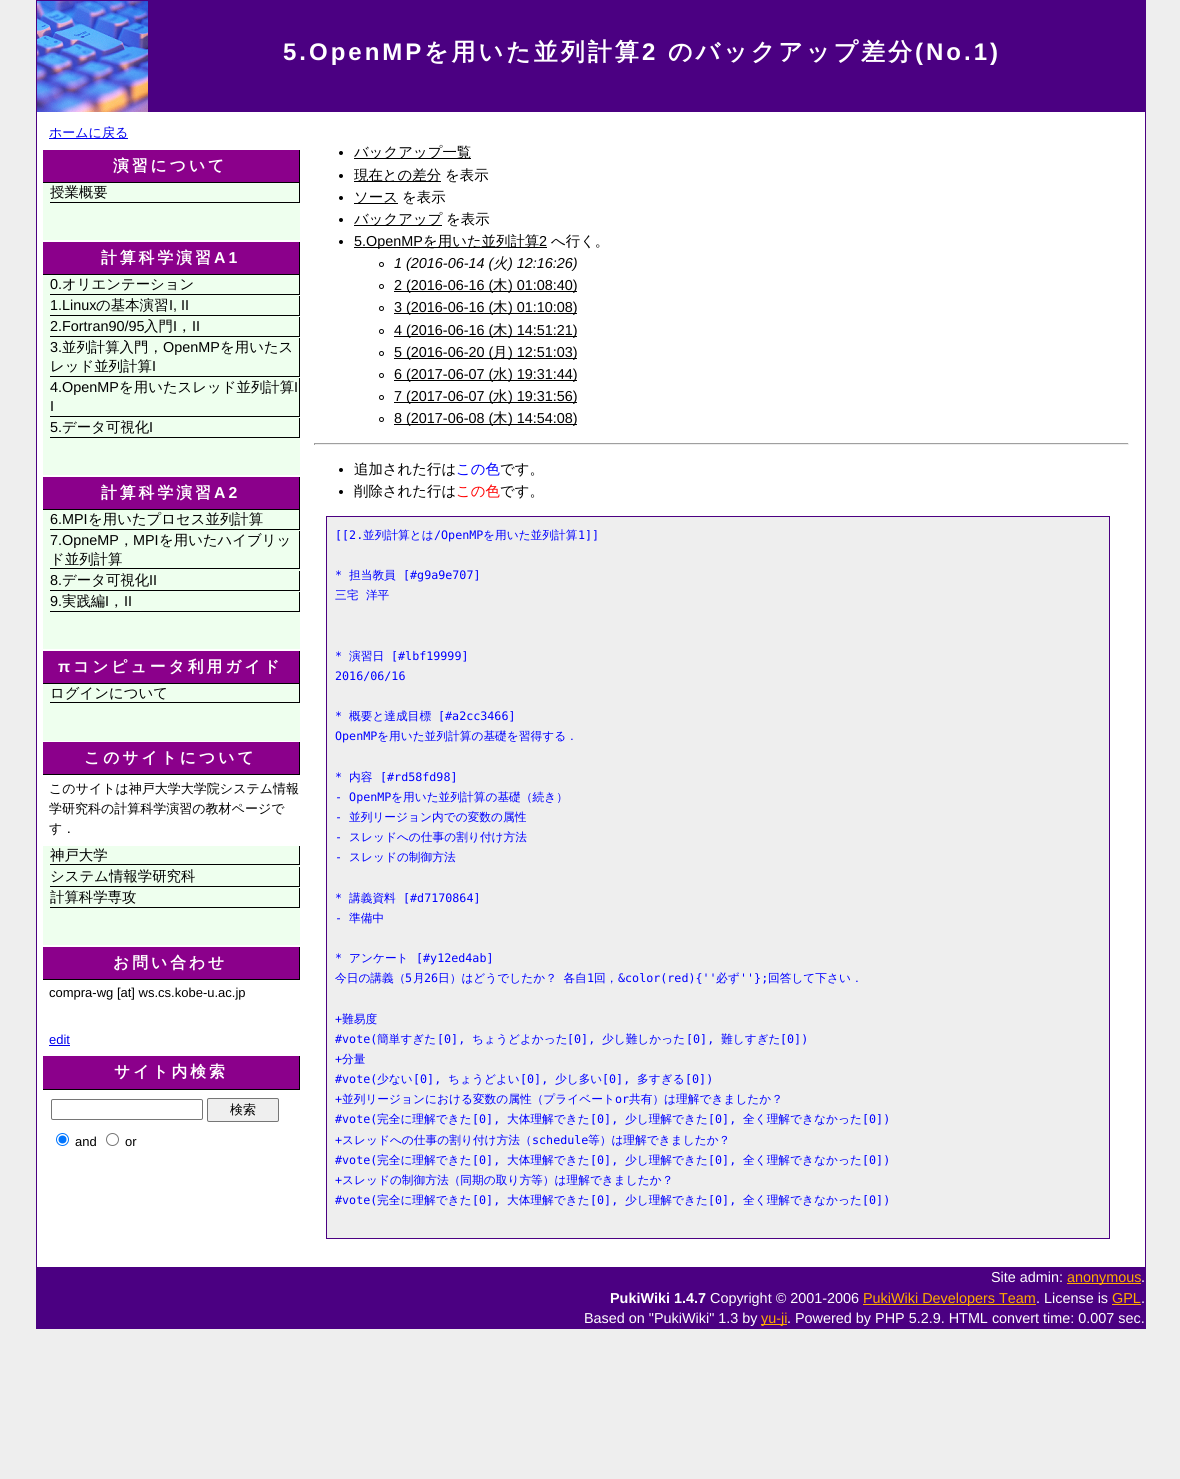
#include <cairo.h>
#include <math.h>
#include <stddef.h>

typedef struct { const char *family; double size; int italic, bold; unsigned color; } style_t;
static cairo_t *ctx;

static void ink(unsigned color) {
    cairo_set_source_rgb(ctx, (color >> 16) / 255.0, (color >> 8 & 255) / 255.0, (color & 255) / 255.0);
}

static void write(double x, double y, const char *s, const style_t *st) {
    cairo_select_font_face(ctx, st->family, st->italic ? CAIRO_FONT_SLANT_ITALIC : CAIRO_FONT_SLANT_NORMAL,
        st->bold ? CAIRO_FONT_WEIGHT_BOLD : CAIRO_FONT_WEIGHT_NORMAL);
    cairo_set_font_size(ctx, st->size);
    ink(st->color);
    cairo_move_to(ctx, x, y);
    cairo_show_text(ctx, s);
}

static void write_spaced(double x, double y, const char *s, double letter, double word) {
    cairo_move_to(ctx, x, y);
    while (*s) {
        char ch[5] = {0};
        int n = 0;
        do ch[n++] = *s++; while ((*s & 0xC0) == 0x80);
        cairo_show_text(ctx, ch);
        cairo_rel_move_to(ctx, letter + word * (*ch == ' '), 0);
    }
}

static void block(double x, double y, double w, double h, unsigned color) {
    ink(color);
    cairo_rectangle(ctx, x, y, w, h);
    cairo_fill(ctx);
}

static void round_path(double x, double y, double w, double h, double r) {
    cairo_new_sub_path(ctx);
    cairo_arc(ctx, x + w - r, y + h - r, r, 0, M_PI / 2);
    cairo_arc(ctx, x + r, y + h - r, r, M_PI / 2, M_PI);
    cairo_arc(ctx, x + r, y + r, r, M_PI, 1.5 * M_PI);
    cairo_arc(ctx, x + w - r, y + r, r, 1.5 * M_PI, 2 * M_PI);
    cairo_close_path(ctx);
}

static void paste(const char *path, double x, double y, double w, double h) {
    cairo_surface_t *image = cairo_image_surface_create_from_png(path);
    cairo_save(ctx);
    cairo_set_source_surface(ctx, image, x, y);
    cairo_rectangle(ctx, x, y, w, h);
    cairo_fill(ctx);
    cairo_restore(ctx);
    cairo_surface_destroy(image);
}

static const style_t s1 = {"WenQuanYi Zen Hei Medium", 13, 0, 0, 0x0000ee};
static const style_t s2 = {"WenQuanYi Zen Hei Medium", 14.4, 0, 0, 0x000000};
static const style_t s3 = {"Liberation Sans", 14.4, 0, 0, 0x000000};
static const style_t s4 = {"WenQuanYi Zen Hei Medium", 13, 0, 0, 0x000000};
static const style_t s5 = {"Liberation Sans", 13, 0, 0, 0x000000};
static const style_t s6 = {"Liberation Sans", 13, 0, 0, 0x0000ee};
static const style_t s7 = {"Liberation Sans", 14.4, 1, 0, 0x000000};
static const style_t s8 = {"WenQuanYi Zen Hei Medium", 14.4, 1, 0, 0x000000};
static const style_t s9 = {"WenQuanYi Zen Hei Medium", 14.4, 0, 0, 0x0000ff};
static const style_t s10 = {"WenQuanYi Zen Hei Medium", 14.4, 0, 0, 0xff0000};
static const style_t s11 = {"DejaVu Sans Mono", 11.7, 0, 0, 0x0000ff};
static const style_t s12 = {"WenQuanYi Zen Hei Medium", 11.7, 0, 0, 0x0000ff};
static const style_t s13 = {"Liberation Sans", 14.4, 0, 0, 0xffffff};
static const style_t s14 = {"Liberation Sans", 14.4, 0, 0, 0xffaa00};
static const style_t s15 = {"Liberation Sans", 14.4, 0, 1, 0xffffff};

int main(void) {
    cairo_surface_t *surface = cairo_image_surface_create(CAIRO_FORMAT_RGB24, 1180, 1479);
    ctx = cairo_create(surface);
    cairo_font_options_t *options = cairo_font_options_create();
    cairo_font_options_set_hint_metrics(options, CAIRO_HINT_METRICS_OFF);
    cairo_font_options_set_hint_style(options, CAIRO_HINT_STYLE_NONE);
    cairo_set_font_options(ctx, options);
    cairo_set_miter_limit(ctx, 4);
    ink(0xeeeeee);
    cairo_paint(ctx);
    block(37, 112, 1108, 1155, 0xffffff);
    cairo_rectangle(ctx, 36.5, 0.5, 1109, 1328);
    ink(0x4b0082);
    cairo_set_line_width(ctx, 1);
    cairo_stroke(ctx);
    block(148, 1, 997, 111, 0x4b0082);
    paste("pic1.png", 37, 1, 111, 111);
    cairo_select_font_face(ctx, "Liberation Sans", CAIRO_FONT_SLANT_NORMAL, CAIRO_FONT_WEIGHT_BOLD);
    cairo_set_font_size(ctx, 24);
    ink(0xffffff);
    write_spaced(283, 60, "5.OpenMP", 3, 0);
    cairo_select_font_face(ctx, "WenQuanYi Zen Hei", CAIRO_FONT_SLANT_NORMAL, CAIRO_FONT_WEIGHT_BOLD);
    write_spaced(424, 60, "を用いた並列計算", 3, 0);
    cairo_select_font_face(ctx, "Liberation Sans", CAIRO_FONT_SLANT_NORMAL, CAIRO_FONT_WEIGHT_BOLD);
    write_spaced(642, 60, "2", 3, 0);
    cairo_select_font_face(ctx, "WenQuanYi Zen Hei", CAIRO_FONT_SLANT_NORMAL, CAIRO_FONT_WEIGHT_BOLD);
    write_spaced(668, 60, "のバックアップ差分", 3, 0);
    cairo_select_font_face(ctx, "Liberation Sans", CAIRO_FONT_SLANT_NORMAL, CAIRO_FONT_WEIGHT_BOLD);
    write_spaced(915, 60, "(No.1)", 3, 0);
    block(49, 138, 79, 1, 0x0000ee);
    write(49, 137, "ホームに戻る", &s1);
    block(43, 150, 256, 32, 0x8b008b);
    block(299, 150, 1, 33, 0x000000);
    block(43, 182, 257, 1, 0x000000);
    cairo_select_font_face(ctx, "WenQuanYi Zen Hei", CAIRO_FONT_SLANT_NORMAL, CAIRO_FONT_WEIGHT_BOLD);
    cairo_set_font_size(ctx, 15.8);
    ink(0xffffff);
    write_spaced(113, 171, "演習について", 3, 0);
    block(43, 183, 257, 57, 0xeeffee);
    block(299, 183, 1, 20, 0x000000);
    block(50, 202, 250, 1, 0x000000);
    write(50, 197, "授業概要", &s2);
    block(43, 242, 256, 32, 0x8b008b);
    block(299, 242, 1, 33, 0x000000);
    block(43, 274, 257, 1, 0x000000);
    cairo_select_font_face(ctx, "WenQuanYi Zen Hei", CAIRO_FONT_SLANT_NORMAL, CAIRO_FONT_WEIGHT_BOLD);
    cairo_set_font_size(ctx, 15.8);
    ink(0xffffff);
    write_spaced(101, 263, "計算科学演習", 3, 0);
    cairo_select_font_face(ctx, "Liberation Sans", CAIRO_FONT_SLANT_NORMAL, CAIRO_FONT_WEIGHT_BOLD);
    write_spaced(214, 263, "A1", 3, 0);
    block(43, 275, 257, 200, 0xeeffee);
    block(299, 275, 1, 20, 0x000000);
    block(50, 294, 250, 1, 0x000000);
    write(50, 289, "0.", &s3);
    write(62, 289, "オリエンテーション", &s2);
    block(299, 296, 1, 20, 0x000000);
    block(50, 315, 250, 1, 0x000000);
    write(50, 310, "1.Linux", &s3);
    write(96, 310, "の基本演習", &s2);
    write(169, 310, "I, II", &s3);
    block(299, 317, 1, 20, 0x000000);
    block(50, 336, 250, 1, 0x000000);
    write(50, 331, "2.Fortran90/95", &s3);
    write(144, 331, "入門", &s2);
    write(173, 331, "I", &s3);
    write(177, 331, "，", &s2);
    write(192, 331, "II", &s3);
    block(299, 338, 1, 39, 0x000000);
    block(50, 376, 250, 1, 0x000000);
    write(50, 352, "3.", &s3);
    write(62, 352, "並列計算入門，", &s2);
    write(163, 352, "OpenMP", &s3);
    write(220, 352, "を用いたス", &s2);
    write(50, 371, "レッド並列計算", &s2);
    write(152, 371, "I", &s3);
    block(299, 378, 1, 39, 0x000000);
    block(50, 416, 250, 1, 0x000000);
    write(50, 392, "4.OpenMP", &s3);
    write(119, 392, "を用いたスレッド並列計算", &s2);
    write(294, 392, "I", &s3);
    write(50, 411, "I", &s3);
    block(299, 418, 1, 20, 0x000000);
    block(50, 437, 250, 1, 0x000000);
    write(50, 432, "5.", &s3);
    write(62, 432, "データ可視化", &s2);
    write(149, 432, "I", &s3);
    block(43, 477, 256, 32, 0x8b008b);
    block(299, 477, 1, 33, 0x000000);
    block(43, 509, 257, 1, 0x000000);
    cairo_select_font_face(ctx, "WenQuanYi Zen Hei", CAIRO_FONT_SLANT_NORMAL, CAIRO_FONT_WEIGHT_BOLD);
    cairo_set_font_size(ctx, 15.8);
    ink(0xffffff);
    write_spaced(101, 498, "計算科学演習", 3, 0);
    cairo_select_font_face(ctx, "Liberation Sans", CAIRO_FONT_SLANT_NORMAL, CAIRO_FONT_WEIGHT_BOLD);
    write_spaced(214, 498, "A2", 3, 0);
    block(43, 510, 257, 139, 0xeeffee);
    block(299, 510, 1, 20, 0x000000);
    block(50, 529, 250, 1, 0x000000);
    write(50, 524, "6.MPI", &s3);
    write(88, 524, "を用いたプロセス並列計算", &s2);
    block(299, 531, 1, 38, 0x000000);
    block(50, 568, 250, 1, 0x000000);
    write(50, 545, "7.OpneMP", &s3);
    write(119, 545, "，", &s2);
    write(133, 545, "MPI", &s3);
    write(159, 545, "を用いたハイブリッ", &s2);
    write(50, 564, "ド並列計算", &s2);
    block(299, 571, 1, 20, 0x000000);
    block(50, 590, 250, 1, 0x000000);
    write(50, 585, "8.", &s3);
    write(62, 585, "データ可視化", &s2);
    write(149, 585, "II", &s3);
    block(299, 592, 1, 20, 0x000000);
    block(50, 611, 250, 1, 0x000000);
    write(50, 606, "9.", &s3);
    write(62, 606, "実践編", &s2);
    write(105, 606, "I", &s3);
    write(109, 606, "，", &s2);
    write(124, 606, "II", &s3);
    block(43, 651, 256, 32, 0x8b008b);
    block(299, 651, 1, 33, 0x000000);
    block(43, 683, 257, 1, 0x000000);
    cairo_select_font_face(ctx, "Liberation Sans", CAIRO_FONT_SLANT_NORMAL, CAIRO_FONT_WEIGHT_BOLD);
    cairo_set_font_size(ctx, 15.8);
    ink(0xffffff);
    write_spaced(58, 672, "π", 3, 0);
    cairo_select_font_face(ctx, "WenQuanYi Zen Hei", CAIRO_FONT_SLANT_NORMAL, CAIRO_FONT_WEIGHT_BOLD);
    write_spaced(73, 672, "コンピュータ利用ガイド", 3, 0);
    block(43, 684, 257, 57, 0xeeffee);
    block(299, 684, 1, 19, 0x000000);
    block(50, 702, 250, 1, 0x000000);
    write(50, 698, "ログインについて", &s2);
    block(43, 742, 256, 32, 0x8b008b);
    block(299, 742, 1, 33, 0x000000);
    block(43, 774, 257, 1, 0x000000);
    cairo_select_font_face(ctx, "WenQuanYi Zen Hei", CAIRO_FONT_SLANT_NORMAL, CAIRO_FONT_WEIGHT_BOLD);
    cairo_set_font_size(ctx, 15.8);
    ink(0xffffff);
    write_spaced(84, 763, "このサイトについて", 3, 0);
    write(49, 793, "このサイトは神戸大学大学院システム情報", &s4);
    write(49, 813, "学研究科の計算科学演習の教材ページで", &s4);
    write(49, 833, "す．", &s4);
    block(43, 846, 257, 99, 0xeeffee);
    block(299, 846, 1, 19, 0x000000);
    block(50, 864, 250, 1, 0x000000);
    write(50, 860, "神戸大学", &s2);
    block(299, 867, 1, 20, 0x000000);
    block(50, 886, 250, 1, 0x000000);
    write(50, 881, "システム情報学研究科", &s2);
    block(299, 888, 1, 20, 0x000000);
    block(50, 907, 250, 1, 0x000000);
    write(50, 902, "計算科学専攻", &s2);
    block(43, 947, 256, 32, 0x8b008b);
    block(299, 947, 1, 33, 0x000000);
    block(43, 979, 257, 1, 0x000000);
    cairo_select_font_face(ctx, "WenQuanYi Zen Hei", CAIRO_FONT_SLANT_NORMAL, CAIRO_FONT_WEIGHT_BOLD);
    cairo_set_font_size(ctx, 15.8);
    ink(0xffffff);
    write_spaced(113, 968, "お問い合わせ", 3, 0);
    write(49, 997, "compra-wg [at] ws.cs.kobe-u.ac.jp", &s5);
    write(49, 1044, "edit", &s6);
    block(49, 1045, 21, 1, 0x0000ee);
    block(43, 1056, 256, 33, 0x8b008b);
    block(299, 1056, 1, 34, 0x000000);
    block(43, 1089, 257, 1, 0x000000);
    cairo_select_font_face(ctx, "WenQuanYi Zen Hei", CAIRO_FONT_SLANT_NORMAL, CAIRO_FONT_WEIGHT_BOLD);
    cairo_set_font_size(ctx, 15.8);
    ink(0xffffff);
    write_spaced(114, 1077, "サイト内検索", 3, 0);
    round_path(51.5, 1099.5, 151, 20, 1.5);
    ink(0x767676);
    cairo_stroke(ctx);
    ink(0xefefef);
    round_path(207.5, 1098.5, 71, 23, 1.5);
    cairo_fill_preserve(ctx);
    ink(0x767676);
    cairo_stroke(ctx);
    write(230, 1114, "検索", &s4);
    cairo_new_path(ctx);
    cairo_arc(ctx, 62.5, 1139.5, 6, 0, 2 * M_PI);
    ink(0x0075ff);
    cairo_stroke(ctx);
    cairo_arc(ctx, 62.5, 1139.5, 4, 0, 2 * M_PI);
    cairo_fill(ctx);
    write(75, 1146, "and", &s5);
    cairo_new_path(ctx);
    cairo_arc(ctx, 112.5, 1139.5, 6, 0, 2 * M_PI);
    ink(0x767676);
    cairo_stroke(ctx);
    write(125, 1146, "or", &s5);
    cairo_new_path(ctx);
    cairo_arc(ctx, 341, 153, 2, 0, 2 * M_PI);
    cairo_fill(ctx);
    block(354, 158, 117, 1, 0x000000);
    write(354, 157, "バックアップ一覧", &s2);
    cairo_new_path(ctx);
    cairo_arc(ctx, 341, 176, 2, 0, 2 * M_PI);
    cairo_fill(ctx);
    block(354, 181, 87, 1, 0x000000);
    write(354, 180, "現在との差分", &s2);
    write(445, 180, "を表示", &s2);
    cairo_new_path(ctx);
    cairo_arc(ctx, 341, 198, 2, 0, 2 * M_PI);
    cairo_fill(ctx);
    block(354, 203, 44, 1, 0x000000);
    write(354, 202, "ソース", &s2);
    write(402, 202, "を表示", &s2);
    cairo_new_path(ctx);
    cairo_arc(ctx, 341, 220, 2, 0, 2 * M_PI);
    cairo_fill(ctx);
    block(354, 225, 88, 1, 0x000000);
    write(354, 224, "バックアップ", &s2);
    write(446, 224, "を表示", &s2);
    cairo_new_path(ctx);
    cairo_arc(ctx, 341, 242, 2, 0, 2 * M_PI);
    cairo_fill(ctx);
    block(354, 247, 193, 1, 0x000000);
    write(354, 246, "5.OpenMP", &s3);
    write(423, 246, "を用いた並列計算", &s2);
    write(539, 246, "2", &s3);
    write(551, 246, "へ行く。", &s2);
    cairo_new_path(ctx);
    cairo_arc(ctx, 381.5, 264.5, 2, 0, 2 * M_PI);
    cairo_stroke(ctx);
    write(394, 268, "1 (2016-06-14 (", &s7);
    write(493, 268, "火", &s8);
    write(508, 268, ") 12:16:26)", &s7);
    cairo_new_path(ctx);
    cairo_arc(ctx, 381.5, 286.5, 2, 0, 2 * M_PI);
    cairo_stroke(ctx);
    block(394, 291, 183, 1, 0x000000);
    write(394, 290, "2 (2016-06-16 (", &s3);
    write(493, 290, "木", &s2);
    write(508, 290, ") 01:08:40)", &s3);
    cairo_new_path(ctx);
    cairo_arc(ctx, 381.5, 308.5, 2, 0, 2 * M_PI);
    cairo_stroke(ctx);
    block(394, 313, 183, 1, 0x000000);
    write(394, 312, "3 (2016-06-16 (", &s3);
    write(493, 312, "木", &s2);
    write(508, 312, ") 01:10:08)", &s3);
    cairo_new_path(ctx);
    cairo_arc(ctx, 381.5, 331.5, 2, 0, 2 * M_PI);
    cairo_stroke(ctx);
    block(394, 336, 183, 1, 0x000000);
    write(394, 335, "4 (2016-06-16 (", &s3);
    write(493, 335, "木", &s2);
    write(508, 335, ") 14:51:21)", &s3);
    cairo_new_path(ctx);
    cairo_arc(ctx, 381.5, 353.5, 2, 0, 2 * M_PI);
    cairo_stroke(ctx);
    block(394, 358, 183, 1, 0x000000);
    write(394, 357, "5 (2016-06-20 (", &s3);
    write(493, 357, "月", &s2);
    write(508, 357, ") 12:51:03)", &s3);
    cairo_new_path(ctx);
    cairo_arc(ctx, 381.5, 375.5, 2, 0, 2 * M_PI);
    cairo_stroke(ctx);
    block(394, 380, 183, 1, 0x000000);
    write(394, 379, "6 (2017-06-07 (", &s3);
    write(493, 379, "水", &s2);
    write(508, 379, ") 19:31:44)", &s3);
    cairo_new_path(ctx);
    cairo_arc(ctx, 381.5, 397.5, 2, 0, 2 * M_PI);
    cairo_stroke(ctx);
    block(394, 402, 183, 1, 0x000000);
    write(394, 401, "7 (2017-06-07 (", &s3);
    write(493, 401, "水", &s2);
    write(508, 401, ") 19:31:56)", &s3);
    cairo_new_path(ctx);
    cairo_arc(ctx, 381.5, 419.5, 2, 0, 2 * M_PI);
    cairo_stroke(ctx);
    block(394, 424, 183, 1, 0x000000);
    write(394, 423, "8 (2017-06-08 (", &s3);
    write(493, 423, "木", &s2);
    write(508, 423, ") 14:54:08)", &s3);
    block(314, 443, 815, 1, 0x9f9f9f);
    block(1128, 443, 1, 2, 0xeeeeee);
    block(314, 444, 815, 1, 0xeeeeee);
    block(314, 443, 1, 2, 0x9f9f9f);
    ink(0x000000);
    cairo_new_path(ctx);
    cairo_arc(ctx, 341, 470, 2, 0, 2 * M_PI);
    cairo_fill(ctx);
    write(354, 474, "追加された行は", &s2);
    write(456, 474, "この色", &s9);
    write(500, 474, "です。", &s2);
    cairo_new_path(ctx);
    cairo_arc(ctx, 341, 492, 2, 0, 2 * M_PI);
    cairo_fill(ctx);
    write(354, 496, "削除された行は", &s2);
    write(456, 496, "この色", &s10);
    write(500, 496, "です。", &s2);
    ink(0xeeeeee);
    cairo_rectangle(ctx, 326.5, 516.5, 783, 722);
    cairo_fill_preserve(ctx);
    ink(0x4b0082);
    cairo_stroke(ctx);
    write(335, 539, "[[2.", &s11);
    write(363, 539, "並列計算とは", &s12);
    write(434, 539, "/OpenMP", &s11);
    write(483, 539, "を用いた並列計算", &s12);
    write(578, 539, "1]]", &s11);
    write(335, 579, "*", &s11);
    write(349, 579, "担当教員", &s12);
    write(403, 579, "[#g9a9e707]", &s11);
    cairo_select_font_face(ctx, "WenQuanYi Zen Hei Medium", CAIRO_FONT_SLANT_NORMAL, CAIRO_FONT_WEIGHT_NORMAL);
    write_spaced(335, 599, "三宅 洋平", 0, 4);
    write(335, 660, "*", &s11);
    write(349, 660, "演習日", &s12);
    write(391, 660, "[#lbf19999]", &s11);
    write(335, 680, "2016/06/16", &s11);
    write(335, 720, "*", &s11);
    write(349, 720, "概要と達成目標", &s12);
    write(438, 720, "[#a2cc3466]", &s11);
    write(335, 740, "OpenMP", &s11);
    write(377, 740, "を用いた並列計算の基礎を習得する．", &s12);
    write(335, 781, "*", &s11);
    write(349, 781, "内容", &s12);
    write(380, 781, "[#rd58fd98]", &s11);
    write(335, 801, "- OpenMP", &s11);
    write(391, 801, "を用いた並列計算の基礎（続き）", &s12);
    write(335, 821, "-", &s11);
    write(349, 821, "並列リージョン内での変数の属性", &s12);
    write(335, 841, "-", &s11);
    write(349, 841, "スレッドへの仕事の割り付け方法", &s12);
    write(335, 861, "-", &s11);
    write(349, 861, "スレッドの制御方法", &s12);
    write(335, 902, "*", &s11);
    write(349, 902, "講義資料", &s12);
    write(403, 902, "[#d7170864]", &s11);
    write(335, 922, "-", &s11);
    write(349, 922, "準備中", &s12);
    write(335, 962, "*", &s11);
    write(349, 962, "アンケート", &s12);
    write(416, 962, "[#y12ed4ab]", &s11);
    write(335, 982, "今日の講義（", &s12);
    write(405, 982, "5", &s11);
    write(413, 982, "月", &s12);
    write(424, 982, "26", &s11);
    cairo_select_font_face(ctx, "WenQuanYi Zen Hei Medium", CAIRO_FONT_SLANT_NORMAL, CAIRO_FONT_WEIGHT_NORMAL);
    write_spaced(438, 982, "日）はどうでしたか？ 各自", 0, 3);
    write(587, 982, "1", &s11);
    write(594, 982, "回，", &s12);
    write(618, 982, "&color(red){''", &s11);
    write(716, 982, "必ず", &s12);
    write(740, 982, "''};", &s11);
    write(768, 982, "回答して下さい．", &s12);
    write(335, 1023, "+", &s11);
    write(342, 1023, "難易度", &s12);
    write(335, 1043, "#vote(", &s11);
    write(377, 1043, "簡単すぎた", &s12);
    write(437, 1043, "[0],", &s11);
    write(472, 1043, "ちょうどよかった", &s12);
    write(567, 1043, "[0],", &s11);
    write(602, 1043, "少し難しかった", &s12);
    write(686, 1043, "[0],", &s11);
    write(721, 1043, "難しすぎた", &s12);
    write(780, 1043, "[0])", &s11);
    write(335, 1063, "+", &s11);
    write(342, 1063, "分量", &s12);
    write(335, 1083, "#vote(", &s11);
    write(377, 1083, "少ない", &s12);
    write(413, 1083, "[0],", &s11);
    write(448, 1083, "ちょうどよい", &s12);
    write(520, 1083, "[0],", &s11);
    write(555, 1083, "少し多い", &s12);
    write(602, 1083, "[0],", &s11);
    write(637, 1083, "多すぎる", &s12);
    write(685, 1083, "[0])", &s11);
    write(335, 1103, "+", &s11);
    write(342, 1103, "並列リージョンにおける変数の属性（プライベート", &s12);
    write(615, 1103, "or", &s11);
    write(629, 1103, "共有）は理解できましたか？", &s12);
    write(335, 1123, "#vote(", &s11);
    write(377, 1123, "完全に理解できた", &s12);
    write(472, 1123, "[0],", &s11);
    write(507, 1123, "大体理解できた", &s12);
    write(590, 1123, "[0],", &s11);
    write(625, 1123, "少し理解できた", &s12);
    write(708, 1123, "[0],", &s11);
    write(743, 1123, "全く理解できなかった", &s12);
    write(862, 1123, "[0])", &s11);
    write(335, 1144, "+", &s11);
    write(342, 1144, "スレッドへの仕事の割り付け方法（", &s12);
    write(532, 1144, "schedule", &s11);
    write(588, 1144, "等）は理解できましたか？", &s12);
    write(335, 1164, "#vote(", &s11);
    write(377, 1164, "完全に理解できた", &s12);
    write(472, 1164, "[0],", &s11);
    write(507, 1164, "大体理解できた", &s12);
    write(590, 1164, "[0],", &s11);
    write(625, 1164, "少し理解できた", &s12);
    write(708, 1164, "[0],", &s11);
    write(743, 1164, "全く理解できなかった", &s12);
    write(862, 1164, "[0])", &s11);
    write(335, 1184, "+", &s11);
    write(342, 1184, "スレッドの制御方法（同期の取り方等）は理解できましたか？", &s12);
    write(335, 1204, "#vote(", &s11);
    write(377, 1204, "完全に理解できた", &s12);
    write(472, 1204, "[0],", &s11);
    write(507, 1204, "大体理解できた", &s12);
    write(590, 1204, "[0],", &s11);
    write(625, 1204, "少し理解できた", &s12);
    write(708, 1204, "[0],", &s11);
    write(743, 1204, "全く理解できなかった", &s12);
    write(862, 1204, "[0])", &s11);
    block(37, 1267, 1108, 61, 0x4b0082);
    write(991, 1282, "Site admin:", &s13);
    block(1067, 1283, 74, 1, 0xffaa00);
    write(1067, 1282, "anonymous", &s14);
    write(1141, 1282, ".", &s13);
    write(610, 1303, "PukiWiki 1.4.7", &s15);
    write(710, 1303, "Copyright © 2001-2006", &s13);
    block(863, 1304, 173, 1, 0xffaa00);
    write(863, 1303, "PukiWiki Developers Team", &s14);
    write(1036, 1303, ". License is", &s13);
    write(1112, 1303, "GPL", &s14);
    block(1112, 1304, 29, 1, 0xffaa00);
    write(1141, 1303, ".", &s13);
    write(584, 1323, "Based on \"PukiWiki\" 1.3 by", &s13);
    block(761, 1324, 26, 1, 0xffaa00);
    write(761, 1323, "yu-ji", &s14);
    write(787, 1323, ". Powered by PHP 5.2.9. HTML convert time: 0.007 sec.", &s13);
    cairo_surface_write_to_png(surface, "screenshot.png");
    cairo_font_options_destroy(options);
    cairo_destroy(ctx);
    cairo_surface_destroy(surface);
    return 0;
}
